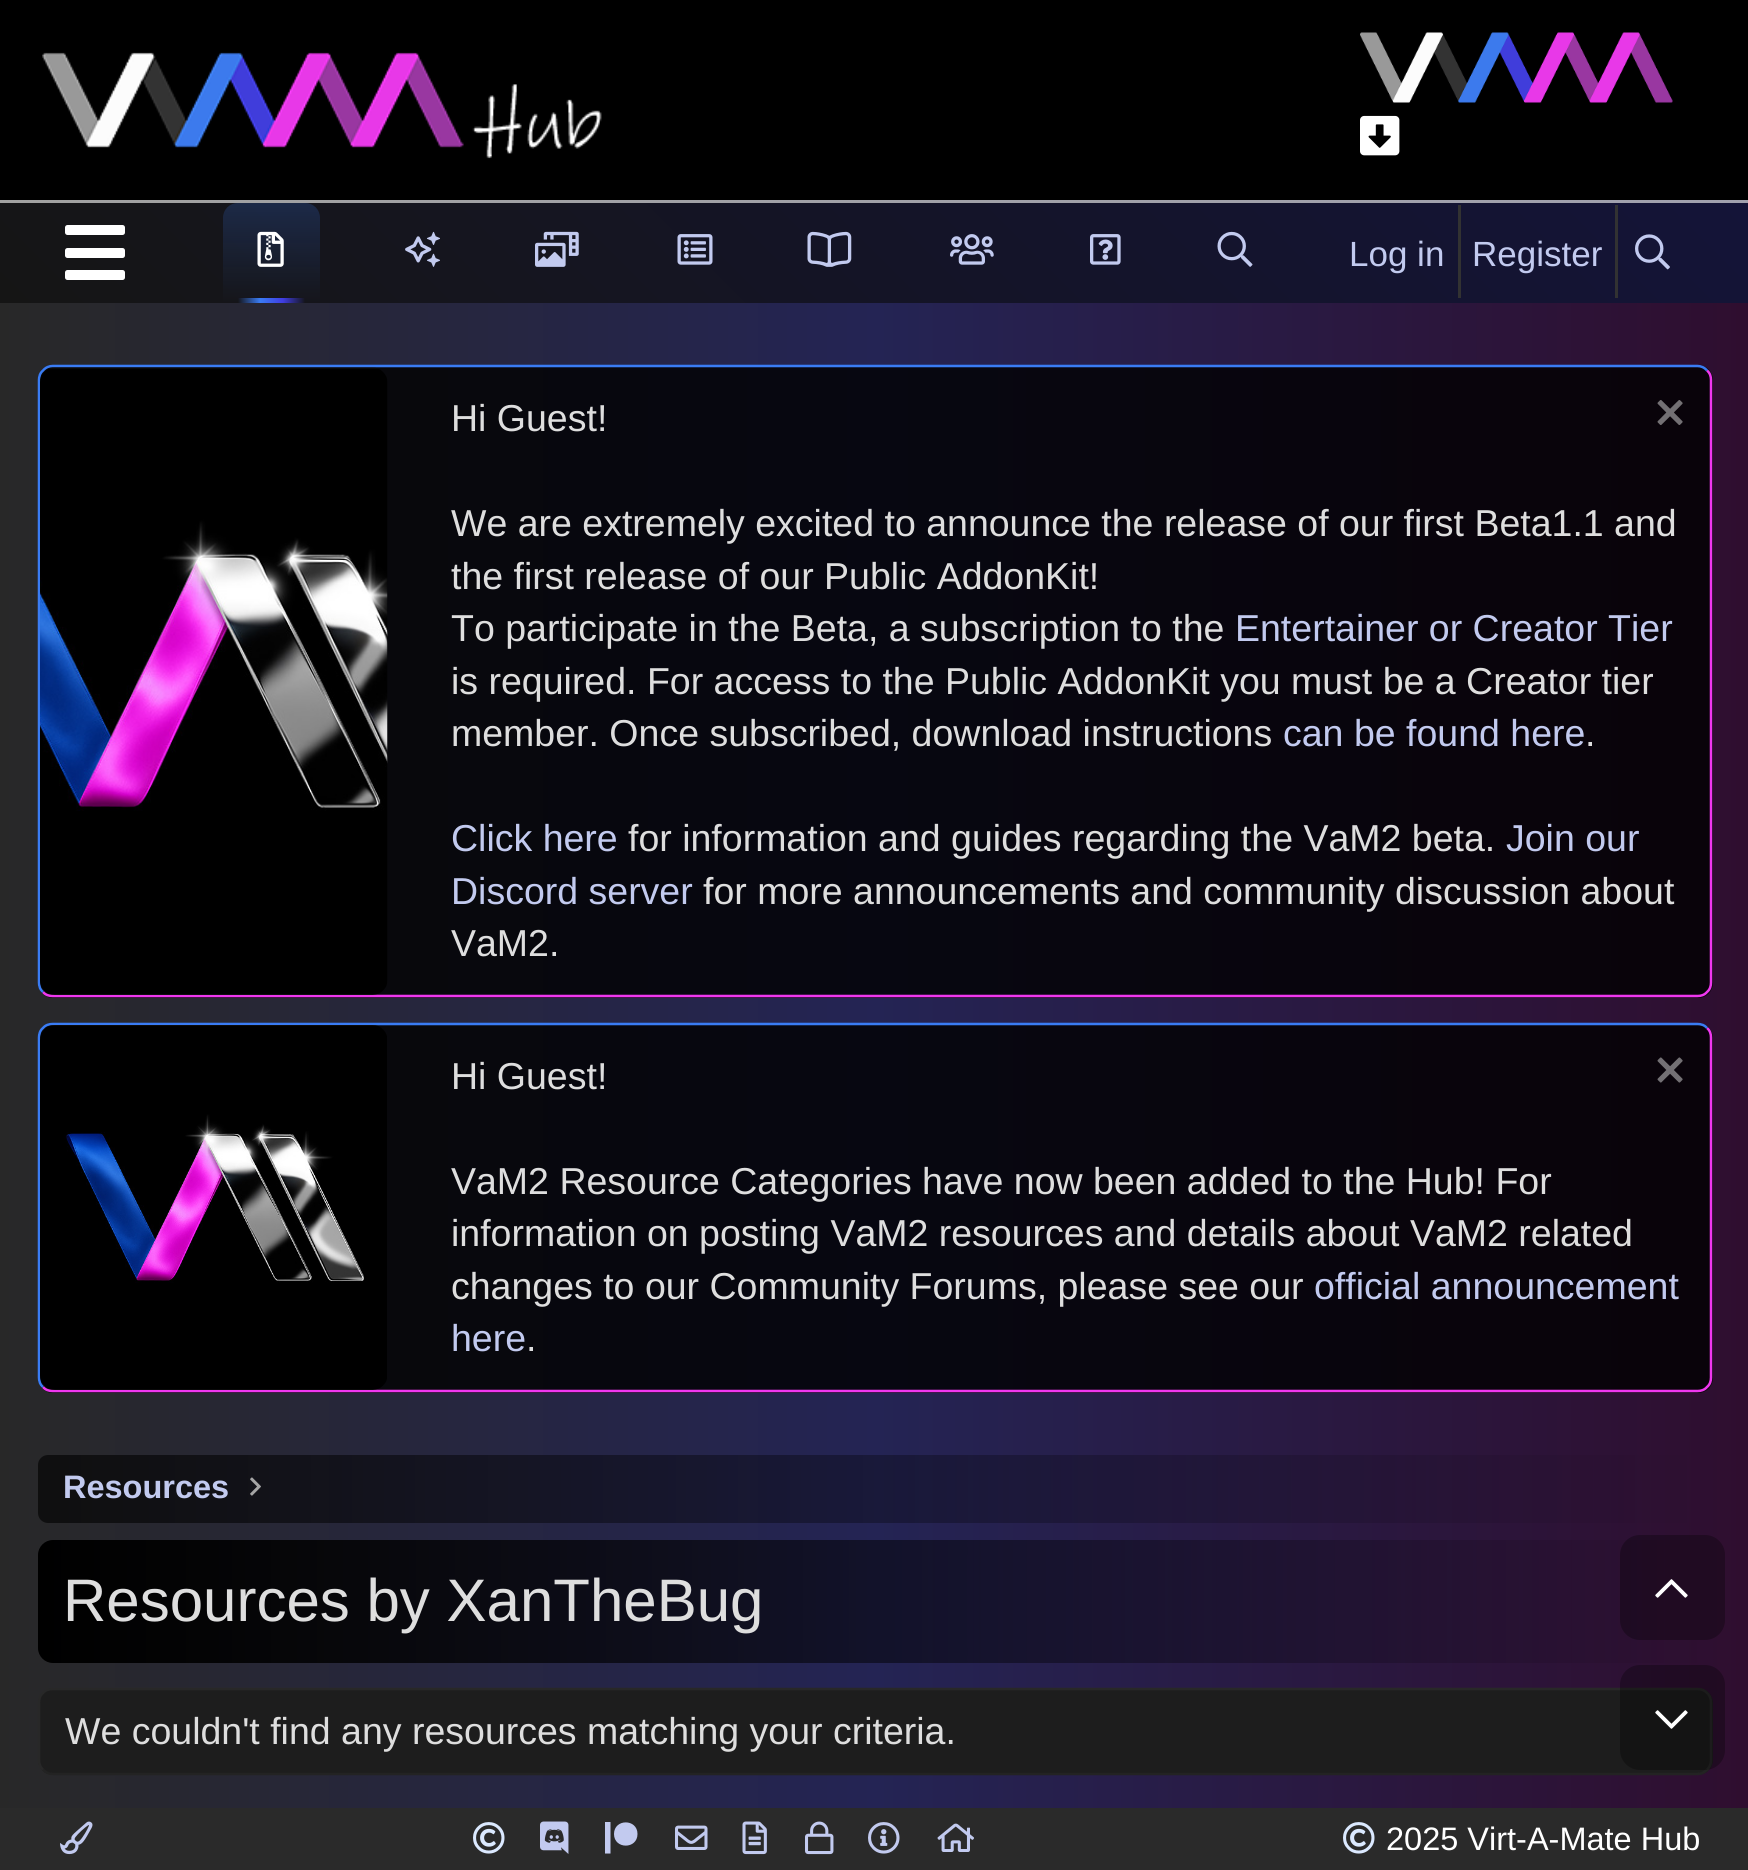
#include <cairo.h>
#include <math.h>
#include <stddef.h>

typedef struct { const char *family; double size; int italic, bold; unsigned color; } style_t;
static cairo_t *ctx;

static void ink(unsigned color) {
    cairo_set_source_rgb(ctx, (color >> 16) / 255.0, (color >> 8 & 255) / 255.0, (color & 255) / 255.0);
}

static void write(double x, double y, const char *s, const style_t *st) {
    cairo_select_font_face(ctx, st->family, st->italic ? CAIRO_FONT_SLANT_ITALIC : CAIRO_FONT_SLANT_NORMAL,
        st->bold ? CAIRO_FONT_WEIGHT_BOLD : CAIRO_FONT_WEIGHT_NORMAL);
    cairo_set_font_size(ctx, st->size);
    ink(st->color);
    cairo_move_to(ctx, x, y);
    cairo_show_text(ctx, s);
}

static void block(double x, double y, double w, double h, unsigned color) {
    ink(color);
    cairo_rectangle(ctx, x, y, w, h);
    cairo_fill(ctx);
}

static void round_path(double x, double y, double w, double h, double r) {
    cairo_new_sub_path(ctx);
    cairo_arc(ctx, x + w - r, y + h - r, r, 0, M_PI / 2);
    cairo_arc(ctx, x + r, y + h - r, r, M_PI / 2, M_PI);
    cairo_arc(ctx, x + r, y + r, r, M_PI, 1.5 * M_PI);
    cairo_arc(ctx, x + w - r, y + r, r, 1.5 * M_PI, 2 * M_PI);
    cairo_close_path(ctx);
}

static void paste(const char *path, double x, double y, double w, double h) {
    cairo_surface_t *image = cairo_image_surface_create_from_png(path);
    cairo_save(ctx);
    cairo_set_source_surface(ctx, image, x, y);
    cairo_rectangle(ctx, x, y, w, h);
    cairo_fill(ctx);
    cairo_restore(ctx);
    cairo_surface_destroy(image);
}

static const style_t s1 = {"Liberation Sans", 35, 0, 0, 0xc2caef};
static const style_t s2 = {"Liberation Sans", 37.5, 0, 0, 0xdedede};
static const style_t s3 = {"Liberation Sans", 37.5, 0, 0, 0xc2caef};
static const style_t s4 = {"Liberation Sans", 32.5, 0, 1, 0xc2caef};
static const style_t s5 = {"Liberation Sans", 60, 0, 0, 0xdedede};
static const style_t s6 = {"Liberation Sans", 32.5, 0, 0, 0xffffff};

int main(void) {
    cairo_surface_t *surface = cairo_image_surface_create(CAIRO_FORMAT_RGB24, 1748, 1870);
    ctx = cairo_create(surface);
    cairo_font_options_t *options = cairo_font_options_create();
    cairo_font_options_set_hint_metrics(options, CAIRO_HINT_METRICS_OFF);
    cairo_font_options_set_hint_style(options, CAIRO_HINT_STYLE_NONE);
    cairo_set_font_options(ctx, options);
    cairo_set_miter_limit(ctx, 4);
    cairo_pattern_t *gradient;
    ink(0xffffff);
    cairo_paint(ctx);
    gradient = cairo_pattern_create_linear(0, 1016, 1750, 1016);
    cairo_pattern_add_color_stop_rgba(gradient, 0, 0.157, 0.157, 0.157, 1);
    cairo_pattern_add_color_stop_rgba(gradient, 0.5, 0.141, 0.141, 0.329, 1);
    cairo_pattern_add_color_stop_rgba(gradient, 1, 0.184, 0.055, 0.184, 1);
    cairo_set_source(ctx, gradient);
    cairo_pattern_destroy(gradient);
    cairo_rectangle(ctx, 0, 303, 1748, 1505);
    cairo_fill(ctx);
    block(0, 0, 1748, 200, 0x000000);
    paste("pic1.png", 42, 52, 560, 107);
    paste("pic2.png", 1360, 32, 313, 71);
    paste("pic3.png", 1360, 115, 40, 41);
    gradient = cairo_pattern_create_linear(413, 615, 1338, -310);
    cairo_pattern_add_color_stop_rgba(gradient, 0, 0.631, 0.631, 0.631, 1);
    cairo_pattern_add_color_stop_rgba(gradient, 1, 0.631, 0.631, 0.686, 1);
    cairo_set_source(ctx, gradient);
    cairo_pattern_destroy(gradient);
    cairo_rectangle(ctx, 0, 200, 1748, 3);
    cairo_fill(ctx);
    gradient = cairo_pattern_create_linear(413, 715, 1338, -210);
    cairo_pattern_add_color_stop_rgba(gradient, 0, 0.082, 0.082, 0.082, 1);
    cairo_pattern_add_color_stop_rgba(gradient, 1, 0.078, 0.078, 0.22, 1);
    cairo_set_source(ctx, gradient);
    cairo_pattern_destroy(gradient);
    cairo_rectangle(ctx, 0, 203, 1748, 100);
    cairo_fill(ctx);
    ink(0xffffff);
    round_path(65, 225, 60, 10, 2.5);
    cairo_fill(ctx);
    round_path(65, 248, 60, 10, 2.5);
    cairo_fill(ctx);
    round_path(65, 270, 60, 10, 2.5);
    cairo_fill(ctx);
    gradient = cairo_pattern_create_linear(271, 203, 271, 303);
    cairo_pattern_add_color_stop_rgba(gradient, 0, 0.227, 0.486, 0.957, 0.2);
    cairo_pattern_add_color_stop_rgba(gradient, 1, 0.227, 0.486, 0.957, 0);
    cairo_set_source(ctx, gradient);
    cairo_pattern_destroy(gradient);
    cairo_new_path(ctx);
    cairo_move_to(ctx, 238, 203);
    cairo_line_to(ctx, 305, 203);
    cairo_curve_to(ctx, 313.5, 203, 320, 209.5, 320, 218);
    cairo_line_to(ctx, 320, 303);
    cairo_line_to(ctx, 223, 303);
    cairo_line_to(ctx, 223, 218);
    cairo_curve_to(ctx, 223, 209.5, 229.5, 203, 238, 203);
    cairo_close_path(ctx);
    cairo_fill(ctx);
    paste("pic4.png", 257, 231, 27, 36);
    gradient = cairo_pattern_create_linear(238, 300, 305, 300);
    cairo_pattern_add_color_stop_rgba(gradient, 0, 0.227, 0.486, 0.957, 0);
    cairo_pattern_add_color_stop_rgba(gradient, 0.33, 0.227, 0.486, 0.957, 1);
    cairo_pattern_add_color_stop_rgba(gradient, 0.67, 0.251, 0.239, 0.886, 1);
    cairo_pattern_add_color_stop_rgba(gradient, 1, 0.251, 0.239, 0.886, 0);
    cairo_set_source(ctx, gradient);
    cairo_pattern_destroy(gradient);
    cairo_rectangle(ctx, 238, 298, 67, 5);
    cairo_fill(ctx);
    paste("pic5.png", 405, 231, 35, 36);
    paste("pic6.png", 535, 231, 44, 36);
    paste("pic7.png", 677, 234, 36, 31);
    paste("pic8.png", 807, 231, 45, 36);
    paste("pic9.png", 950, 234, 44, 31);
    paste("pic10.png", 1090, 234, 31, 31);
    paste("pic11.png", 1217, 231, 36, 36);
    write(1349, 266, "Log in", &s1);
    block(1458, 205, 3, 93, 0x323232);
    write(1472, 266, "Register", &s1);
    block(1615, 205, 3, 93, 0x323232);
    paste("pic12.png", 1635, 234, 35, 36);
    cairo_set_source_rgba(ctx, 0, 0, 0, 0.8);
    round_path(38, 365, 1675, 633, 15);
    cairo_fill(ctx);
    cairo_new_path(ctx);
    cairo_move_to(ctx, 1707, 370.5);
    cairo_curve_to(ctx, 1710, 373, 1711, 376.5, 1711, 380);
    cairo_line_to(ctx, 1711, 982.5);
    cairo_curve_to(ctx, 1711, 986, 1710, 989.5, 1707, 992);
    cairo_curve_to(ctx, 1704.5, 995, 1701, 996, 1697.5, 996);
    cairo_line_to(ctx, 52.5, 996);
    cairo_curve_to(ctx, 49, 996, 45.5, 995, 43, 992);
    ink(0xef37ef);
    cairo_set_line_width(ctx, 2.5);
    cairo_stroke(ctx);
    cairo_new_path(ctx);
    cairo_move_to(ctx, 43, 992);
    cairo_curve_to(ctx, 40, 989.5, 39, 986, 39, 982.5);
    cairo_line_to(ctx, 39, 380);
    cairo_curve_to(ctx, 39, 376.5, 40, 373, 43, 370.5);
    cairo_curve_to(ctx, 45.5, 367.5, 49, 366, 52.5, 366);
    cairo_line_to(ctx, 1697.5, 366);
    cairo_curve_to(ctx, 1701, 366, 1704.5, 367.5, 1707, 370.5);
    ink(0x3a7cf4);
    cairo_stroke(ctx);
    paste("pic13.png", 40, 367, 348, 628);
    write(451, 431, "Hi Guest!", &s2);
    paste("pic14.png", 1657, 400, 26, 25);
    write(451, 536, "We are extremely excited to announce the release of our first Beta1.1 and", &s2);
    write(451, 589, "the first release of our Public AddonKit!", &s2);
    write(451, 641, "To participate in the Beta, a subscription to the", &s2);
    write(1235, 641, "Entertainer or Creator Tier", &s3);
    write(451, 694, "is required. For access to the Public AddonKit you must be a Creator tier", &s2);
    write(451, 746, "member. Once subscribed, download instructions", &s2);
    write(1283, 746, "can be found here", &s3);
    write(1585, 746, ".", &s2);
    write(451, 851, "Click here", &s3);
    write(628, 851, "for information and guides regarding the VaM2 beta.", &s2);
    write(1506, 851, "Join our", &s3);
    write(451, 904, "Discord server", &s3);
    write(703, 904, "for more announcements and community discussion about", &s2);
    write(451, 956, "VaM2.", &s2);
    cairo_set_source_rgba(ctx, 0, 0, 0, 0.8);
    round_path(38, 1023, 1675, 370, 15);
    cairo_fill(ctx);
    cairo_new_path(ctx);
    cairo_move_to(ctx, 1707, 1028);
    cairo_curve_to(ctx, 1710, 1030.5, 1711, 1034, 1711, 1037.5);
    cairo_line_to(ctx, 1711, 1377.5);
    cairo_curve_to(ctx, 1711, 1381, 1710, 1384.5, 1707, 1387);
    cairo_curve_to(ctx, 1704.5, 1390, 1701, 1391, 1697.5, 1391);
    cairo_line_to(ctx, 52.5, 1391);
    cairo_curve_to(ctx, 49, 1391, 45.5, 1390, 43, 1387);
    ink(0xef37ef);
    cairo_stroke(ctx);
    cairo_new_path(ctx);
    cairo_move_to(ctx, 43, 1387);
    cairo_curve_to(ctx, 40, 1384.5, 39, 1381, 39, 1377.5);
    cairo_line_to(ctx, 39, 1037.5);
    cairo_curve_to(ctx, 39, 1034, 40, 1030.5, 43, 1028);
    cairo_curve_to(ctx, 45.5, 1025, 49, 1024, 52.5, 1024);
    cairo_line_to(ctx, 1697.5, 1024);
    cairo_curve_to(ctx, 1701, 1024, 1704.5, 1025, 1707, 1028);
    ink(0x3a7cf4);
    cairo_stroke(ctx);
    paste("pic15.png", 40, 1025, 347, 365);
    write(451, 1089, "Hi Guest!", &s2);
    paste("pic16.png", 1657, 1057, 26, 26);
    write(451, 1194, "VaM2 Resource Categories have now been added to the Hub! For", &s2);
    write(451, 1246, "information on posting VaM2 resources and details about VaM2 related", &s2);
    write(451, 1299, "changes to our Community Forums, please see our", &s2);
    write(1314, 1299, "official announcement", &s3);
    write(451, 1351, "here", &s3);
    write(526, 1351, ".", &s2);
    gradient = cairo_pattern_create_linear(38, 1489, 1713, 1489);
    cairo_pattern_add_color_stop_rgba(gradient, 0, 0, 0, 0, 0.63);
    cairo_pattern_add_color_stop_rgba(gradient, 1, 0, 0, 0, 0);
    cairo_set_source(ctx, gradient);
    cairo_pattern_destroy(gradient);
    round_path(38, 1455, 1675, 68, 10);
    cairo_fill(ctx);
    write(63, 1498, "Resources", &s4);
    paste("pic17.png", 250, 1477, 11, 19);
    gradient = cairo_pattern_create_linear(38, 1601, 1713, 1601);
    cairo_pattern_add_color_stop_rgba(gradient, 0, 0, 0, 0, 1);
    cairo_pattern_add_color_stop_rgba(gradient, 1, 0, 0, 0, 0);
    cairo_set_source(ctx, gradient);
    cairo_pattern_destroy(gradient);
    round_path(38, 1540, 1675, 123, 15);
    cairo_fill(ctx);
    write(63, 1621, "Resources by XanTheBug", &s5);
    ink(0x1d1d1d);
    round_path(38, 1688, 1675, 87, 15);
    cairo_fill(ctx);
    cairo_new_path(ctx);
    cairo_move_to(ctx, 1707, 1769.5);
    cairo_curve_to(ctx, 1704.5, 1772.5, 1701, 1774, 1697.5, 1774);
    cairo_line_to(ctx, 52.5, 1774);
    cairo_curve_to(ctx, 49, 1774, 45.5, 1772.5, 43, 1769.5);
    ink(0x232323);
    cairo_stroke(ctx);
    cairo_new_path(ctx);
    cairo_move_to(ctx, 43, 1769.5);
    cairo_curve_to(ctx, 40, 1767, 39, 1763.5, 39, 1760);
    cairo_line_to(ctx, 39, 1702.5);
    cairo_curve_to(ctx, 39, 1699, 40, 1695.5, 43, 1693);
    cairo_curve_to(ctx, 45.5, 1690, 49, 1689, 52.5, 1689);
    cairo_line_to(ctx, 1697.5, 1689);
    cairo_curve_to(ctx, 1701, 1689, 1704.5, 1690, 1707, 1693);
    cairo_curve_to(ctx, 1710, 1695.5, 1711, 1699, 1711, 1702.5);
    cairo_line_to(ctx, 1711, 1760);
    cairo_curve_to(ctx, 1711, 1763.5, 1710, 1767, 1707, 1769.5);
    ink(0x282828);
    cairo_stroke(ctx);
    write(65, 1744, "We couldn't find any resources matching your criteria.", &s2);
    block(0, 1808, 1748, 62, 0x2a2a2a);
    paste("pic18.png", 60, 1821, 33, 34);
    paste("pic19.png", 473, 1822, 32, 32);
    paste("pic20.png", 540, 1821, 29, 33);
    ink(0xc2caef);
    cairo_new_path(ctx);
    cairo_move_to(ctx, 637.5, 1834);
    cairo_curve_to(ctx, 637.5, 1849.5, 614, 1849.5, 614, 1834);
    cairo_curve_to(ctx, 614, 1818.5, 637.5, 1818.5, 637.5, 1834);
    cairo_close_path(ctx);
    cairo_move_to(ctx, 605, 1853.5);
    cairo_line_to(ctx, 605, 1822);
    cairo_line_to(ctx, 610.5, 1822);
    cairo_line_to(ctx, 610.5, 1853.5);
    cairo_close_path(ctx);
    cairo_fill(ctx);
    paste("pic21.png", 675, 1825, 33, 25);
    paste("pic22.png", 742, 1821, 25, 34);
    paste("pic23.png", 805, 1821, 29, 34);
    paste("pic24.png", 868, 1822, 32, 32);
    paste("pic25.png", 937, 1823, 37, 29);
    paste("pic19.png", 1343, 1822, 32, 32);
    write(1386, 1850, "2025 Virt-A-Mate Hub", &s6);
    cairo_set_source_rgba(ctx, 0, 0, 0, 0.3);
    round_path(1620, 1535, 105, 105, 20);
    cairo_fill(ctx);
    paste("pic26.png", 1655, 1579, 33, 19);
    round_path(1620, 1665, 105, 105, 20);
    cairo_fill(ctx);
    paste("pic27.png", 1655, 1710, 33, 19);
    cairo_surface_write_to_png(surface, "screenshot.png");
    cairo_font_options_destroy(options);
    cairo_destroy(ctx);
    cairo_surface_destroy(surface);
    return 0;
}
